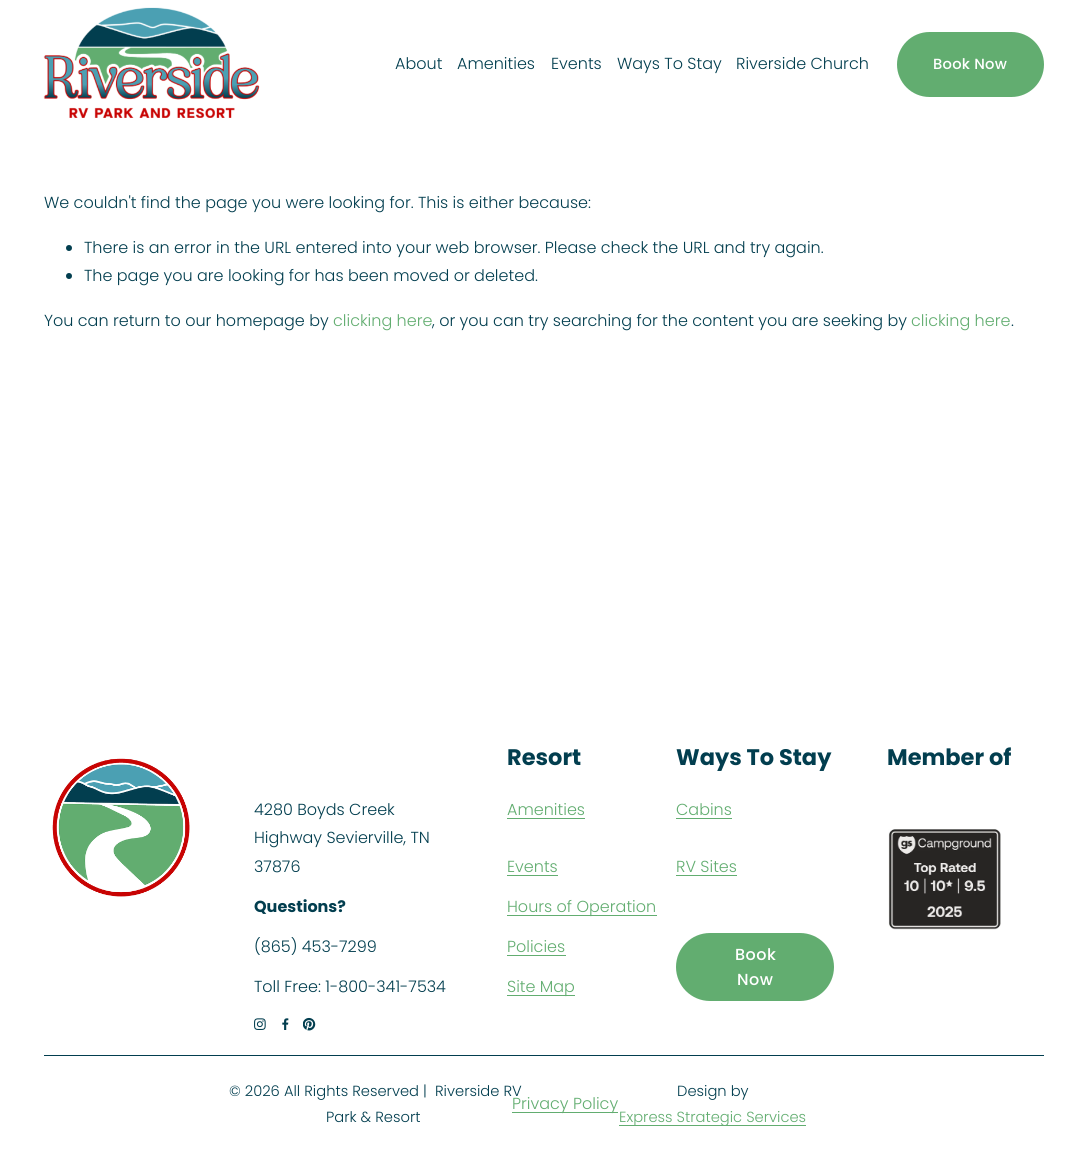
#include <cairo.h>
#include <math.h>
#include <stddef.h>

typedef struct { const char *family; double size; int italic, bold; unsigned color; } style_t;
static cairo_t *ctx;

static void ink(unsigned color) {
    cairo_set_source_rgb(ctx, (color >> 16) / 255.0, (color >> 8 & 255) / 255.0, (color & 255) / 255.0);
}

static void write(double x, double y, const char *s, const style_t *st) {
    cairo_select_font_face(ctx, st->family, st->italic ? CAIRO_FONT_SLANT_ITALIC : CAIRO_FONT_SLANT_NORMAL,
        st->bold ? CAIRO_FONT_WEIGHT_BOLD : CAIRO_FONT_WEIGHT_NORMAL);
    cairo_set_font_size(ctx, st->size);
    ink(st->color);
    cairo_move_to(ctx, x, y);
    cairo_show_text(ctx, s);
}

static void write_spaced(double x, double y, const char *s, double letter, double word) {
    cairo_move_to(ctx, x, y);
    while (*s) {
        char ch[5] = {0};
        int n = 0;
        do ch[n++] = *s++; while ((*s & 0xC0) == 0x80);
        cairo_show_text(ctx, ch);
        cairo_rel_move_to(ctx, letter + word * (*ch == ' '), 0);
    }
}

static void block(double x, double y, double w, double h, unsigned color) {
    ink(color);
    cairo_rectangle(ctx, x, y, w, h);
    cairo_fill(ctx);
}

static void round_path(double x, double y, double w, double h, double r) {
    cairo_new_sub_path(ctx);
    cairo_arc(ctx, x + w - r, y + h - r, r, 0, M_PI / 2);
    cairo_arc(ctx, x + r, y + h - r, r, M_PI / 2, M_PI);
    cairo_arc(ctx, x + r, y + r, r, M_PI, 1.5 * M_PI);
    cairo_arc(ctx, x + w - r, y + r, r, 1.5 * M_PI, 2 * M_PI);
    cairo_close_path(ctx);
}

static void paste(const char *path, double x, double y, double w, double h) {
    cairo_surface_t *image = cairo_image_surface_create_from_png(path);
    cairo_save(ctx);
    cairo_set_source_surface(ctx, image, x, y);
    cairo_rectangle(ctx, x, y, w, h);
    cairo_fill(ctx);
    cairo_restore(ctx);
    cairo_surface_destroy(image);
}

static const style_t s1 = {"Poppins Light", 16, 0, 0, 0x023e4f};
static const style_t s2 = {"Poppins Light", 16, 0, 0, 0x62ad70};
static const style_t s3 = {"Poppins", 22.5, 0, 1, 0x023e4f};
static const style_t s4 = {"Poppins", 16, 0, 1, 0x023e4f};
static const style_t s5 = {"Poppins Light", 14.7, 0, 0, 0x023e4f};
static const style_t s6 = {"Poppins Light", 14.7, 0, 0, 0x62ad70};

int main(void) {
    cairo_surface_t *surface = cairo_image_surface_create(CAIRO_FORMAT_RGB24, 1088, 1170);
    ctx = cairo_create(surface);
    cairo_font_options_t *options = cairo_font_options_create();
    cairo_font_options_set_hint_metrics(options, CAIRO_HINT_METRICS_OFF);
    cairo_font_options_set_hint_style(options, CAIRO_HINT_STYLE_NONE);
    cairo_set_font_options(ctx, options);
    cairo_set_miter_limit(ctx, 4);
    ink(0xffffff);
    cairo_paint(ctx);
    paste("pic1.png", 43, 7, 217, 111);
    write(395, 69, "About", &s1);
    write(457, 69, "Amenities", &s1);
    write(551, 69, "Events", &s1);
    write(617, 69, "Ways To Stay", &s1);
    write(736, 69, "Riverside Church", &s1);
    ink(0x62ad70);
    round_path(897, 32, 147, 65, 32.5);
    cairo_fill(ctx);
    cairo_select_font_face(ctx, "Poppins Medium", CAIRO_FONT_SLANT_NORMAL, CAIRO_FONT_WEIGHT_NORMAL);
    cairo_set_font_size(ctx, 14.7);
    ink(0xffffff);
    write_spaced(933, 69, "Book Now", 0.25, 0);
    write(44, 208, "We couldn't find the page you were looking for. This is either because:", &s1);
    cairo_new_path(ctx);
    cairo_arc(ctx, 69, 248, 3, 0, 2 * M_PI);
    cairo_fill(ctx);
    write(84, 253, "There is an error in the URL entered into your web browser. Please check the URL and try again.", &s1);
    cairo_new_path(ctx);
    cairo_arc(ctx, 69, 276, 3, 0, 2 * M_PI);
    cairo_fill(ctx);
    write(84, 281, "The page you are looking for has been moved or deleted.", &s1);
    write(44, 326, "You can return to our homepage by", &s1);
    write(333, 326, "clicking here", &s2);
    write(432, 326, ", or you can try searching for the content you are seeking by", &s1);
    write(911, 326, "clicking here", &s2);
    write(1011, 326, ".", &s1);
    paste("pic2.png", 52, 758, 138, 139);
    write(254, 815, "4280 Boyds Creek", &s1);
    write(254, 843, "Highway Sevierville, TN", &s1);
    write(254, 872, "37876", &s1);
    write(507, 765, "Resort", &s3);
    write(676, 765, "Ways To Stay", &s3);
    write(887, 765, "Member of", &s3);
    write(507, 815, "Amenities", &s2);
    block(507, 818, 78, 1, 0x62ad70);
    write(676, 815, "Cabins", &s2);
    block(676, 818, 56, 1, 0x62ad70);
    write(507, 872, "Events", &s2);
    block(507, 875, 51, 1, 0x62ad70);
    write(676, 872, "RV Sites", &s2);
    block(676, 875, 61, 1, 0x62ad70);
    paste("pic3.png", 888, 829, 113, 101);
    write(254, 912, "Questions?", &s4);
    block(507, 915, 150, 1, 0x62ad70);
    write(507, 912, "Hours of Operation", &s2);
    write(254, 952, "(865) 453-7299", &s1);
    write(507, 952, "Policies", &s2);
    block(507, 955, 59, 1, 0x62ad70);
    write(254, 992, "Toll Free: 1-800-341-7534", &s1);
    block(507, 995, 68, 1, 0x62ad70);
    write(507, 992, "Site Map", &s2);
    round_path(676, 933, 158, 68, 34);
    cairo_fill(ctx);
    cairo_select_font_face(ctx, "Poppins Medium", CAIRO_FONT_SLANT_NORMAL, CAIRO_FONT_WEIGHT_NORMAL);
    ink(0xffffff);
    write_spaced(735, 960, "Book", 0.5, 0);
    write_spaced(737, 985, "Now", 0.5, 0);
    paste("pic4.png", 254, 1018, 12, 12);
    paste("pic5.png", 282, 1018, 7, 12);
    paste("pic6.png", 303, 1017, 13, 14);
    block(44, 1055, 1000, 1, 0x023e4f);
    write(229, 1096, "© 2026 All Rights Reserved |  Riverside RV", &s5);
    write(326, 1122, "Park & Resort", &s5);
    block(512, 1112, 106, 1, 0x62ad70);
    write(512, 1109, "Privacy Policy", &s2);
    write(677, 1096, "Design by", &s5);
    block(619, 1125, 187, 1, 0x62ad70);
    write(619, 1122, "Express Strategic Services", &s6);
    cairo_surface_write_to_png(surface, "screenshot.png");
    cairo_font_options_destroy(options);
    cairo_destroy(ctx);
    cairo_surface_destroy(surface);
    return 0;
}
